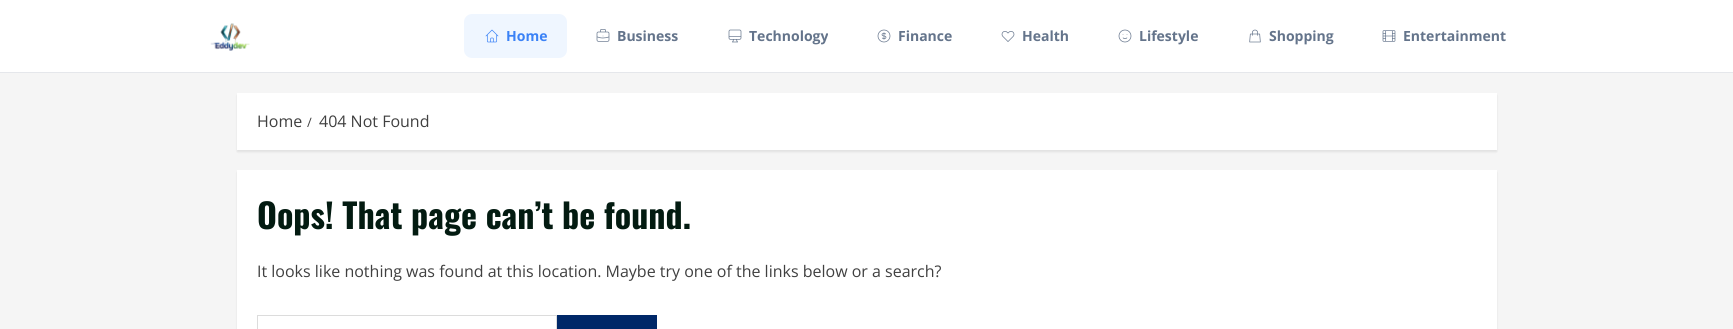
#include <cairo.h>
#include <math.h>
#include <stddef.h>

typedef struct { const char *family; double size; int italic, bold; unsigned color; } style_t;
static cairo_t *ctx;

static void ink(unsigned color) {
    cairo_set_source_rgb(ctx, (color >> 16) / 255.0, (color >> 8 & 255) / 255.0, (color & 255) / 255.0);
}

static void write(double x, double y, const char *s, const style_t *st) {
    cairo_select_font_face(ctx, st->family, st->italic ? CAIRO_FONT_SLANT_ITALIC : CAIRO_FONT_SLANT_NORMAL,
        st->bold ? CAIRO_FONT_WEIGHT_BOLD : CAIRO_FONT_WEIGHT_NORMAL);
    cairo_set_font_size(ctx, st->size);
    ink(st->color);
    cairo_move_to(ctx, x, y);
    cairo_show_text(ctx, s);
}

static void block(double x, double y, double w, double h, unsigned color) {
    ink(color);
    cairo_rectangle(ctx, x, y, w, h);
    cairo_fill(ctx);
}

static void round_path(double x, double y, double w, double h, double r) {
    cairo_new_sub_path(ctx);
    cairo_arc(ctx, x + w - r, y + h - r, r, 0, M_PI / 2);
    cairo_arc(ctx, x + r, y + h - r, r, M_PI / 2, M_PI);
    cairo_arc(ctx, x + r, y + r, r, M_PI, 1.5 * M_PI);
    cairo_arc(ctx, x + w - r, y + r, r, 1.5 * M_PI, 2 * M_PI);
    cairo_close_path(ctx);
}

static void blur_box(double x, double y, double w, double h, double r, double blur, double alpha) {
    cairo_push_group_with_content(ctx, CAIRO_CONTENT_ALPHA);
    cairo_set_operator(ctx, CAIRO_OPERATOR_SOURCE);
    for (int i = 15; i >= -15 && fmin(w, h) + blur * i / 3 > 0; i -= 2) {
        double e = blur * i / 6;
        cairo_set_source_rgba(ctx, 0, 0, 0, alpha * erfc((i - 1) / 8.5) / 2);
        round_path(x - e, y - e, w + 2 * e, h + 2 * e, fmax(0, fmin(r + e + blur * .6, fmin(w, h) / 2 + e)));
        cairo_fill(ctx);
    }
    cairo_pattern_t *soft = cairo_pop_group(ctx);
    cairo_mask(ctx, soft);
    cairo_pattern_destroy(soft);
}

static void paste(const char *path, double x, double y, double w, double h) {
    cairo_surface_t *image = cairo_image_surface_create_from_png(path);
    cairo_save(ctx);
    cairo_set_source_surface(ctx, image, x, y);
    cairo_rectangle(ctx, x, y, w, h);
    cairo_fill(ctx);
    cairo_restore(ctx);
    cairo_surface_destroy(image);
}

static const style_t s1 = {"Open Sans", 14, 0, 1, 0x3b82f6};
static const style_t s2 = {"Open Sans", 14, 0, 1, 0x64748b};
static const style_t s3 = {"Open Sans", 16, 0, 0, 0x404040};
static const style_t s4 = {"Open Sans", 13, 0, 0, 0x404040};
static const style_t s5 = {"Oswald", 34, 0, 1, 0x031b11};

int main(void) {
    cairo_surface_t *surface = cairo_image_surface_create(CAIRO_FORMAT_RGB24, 1733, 329);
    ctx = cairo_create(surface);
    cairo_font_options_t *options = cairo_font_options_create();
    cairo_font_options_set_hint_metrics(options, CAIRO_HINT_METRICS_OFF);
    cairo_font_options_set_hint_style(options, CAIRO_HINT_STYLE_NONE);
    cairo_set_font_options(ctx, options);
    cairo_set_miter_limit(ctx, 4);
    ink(0xf5f5f5);
    cairo_paint(ctx);
    block(0, 0, 1733, 72, 0xffffff);
    block(0, 72, 1733, 1, 0xe5e7eb);
    paste("pic1.png", 210, 23, 40, 28);
    ink(0xeff6ff);
    round_path(464, 14, 103, 44, 8);
    cairo_fill(ctx);
    paste("pic2.png", 485, 29, 14, 14);
    write(506, 41, "Home", &s1);
    paste("pic3.png", 596, 29, 14, 13);
    write(617, 41, "Business", &s2);
    paste("pic4.png", 728, 29, 14, 14);
    write(749, 41, "Technology", &s2);
    paste("pic5.png", 877, 29, 14, 14);
    write(898, 41, "Finance", &s2);
    paste("pic6.png", 1001, 31, 14, 11);
    write(1022, 41, "Health", &s2);
    paste("pic7.png", 1118, 29, 14, 14);
    write(1139, 41, "Lifestyle", &s2);
    paste("pic8.png", 1249, 29, 12, 14);
    write(1269, 41, "Shopping", &s2);
    paste("pic9.png", 1382, 30, 14, 12);
    write(1403, 41, "Entertainment", &s2);
    ink(0x000000);
    blur_box(237, 95, 1260, 57, 0, 1, 0.08);
    block(237, 93, 1260, 57, 0xffffff);
    write(257, 127, "Home", &s3);
    write(307, 127, "/", &s4);
    write(319, 127, "404 Not Found", &s3);
    ink(0x000000);
    blur_box(237, 172, 1260, 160, 0, 1, 0.08);
    block(237, 170, 1260, 159, 0xffffff);
    write(257, 229, "Oops! That page can’t be found.", &s5);
    write(257, 277, "It looks like nothing was found at this location. Maybe try one of the links below or a search?", &s3);
    cairo_rectangle(ctx, 257.5, 315.5, 299, 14);
    ink(0xdcdcdc);
    cairo_set_line_width(ctx, 1);
    cairo_stroke(ctx);
    block(557, 315, 100, 14, 0x002868);
    cairo_surface_write_to_png(surface, "screenshot.png");
    cairo_font_options_destroy(options);
    cairo_destroy(ctx);
    cairo_surface_destroy(surface);
    return 0;
}
